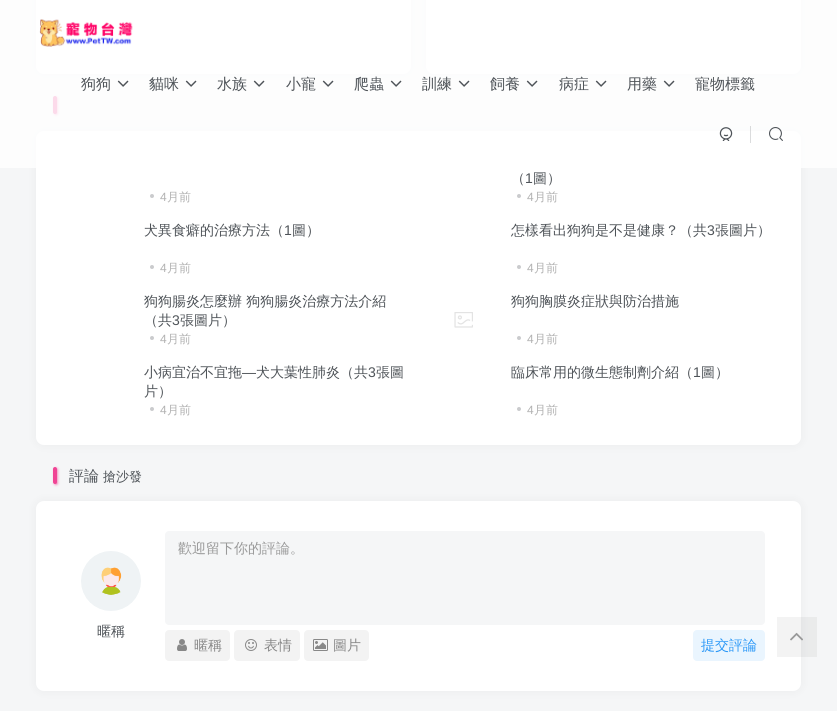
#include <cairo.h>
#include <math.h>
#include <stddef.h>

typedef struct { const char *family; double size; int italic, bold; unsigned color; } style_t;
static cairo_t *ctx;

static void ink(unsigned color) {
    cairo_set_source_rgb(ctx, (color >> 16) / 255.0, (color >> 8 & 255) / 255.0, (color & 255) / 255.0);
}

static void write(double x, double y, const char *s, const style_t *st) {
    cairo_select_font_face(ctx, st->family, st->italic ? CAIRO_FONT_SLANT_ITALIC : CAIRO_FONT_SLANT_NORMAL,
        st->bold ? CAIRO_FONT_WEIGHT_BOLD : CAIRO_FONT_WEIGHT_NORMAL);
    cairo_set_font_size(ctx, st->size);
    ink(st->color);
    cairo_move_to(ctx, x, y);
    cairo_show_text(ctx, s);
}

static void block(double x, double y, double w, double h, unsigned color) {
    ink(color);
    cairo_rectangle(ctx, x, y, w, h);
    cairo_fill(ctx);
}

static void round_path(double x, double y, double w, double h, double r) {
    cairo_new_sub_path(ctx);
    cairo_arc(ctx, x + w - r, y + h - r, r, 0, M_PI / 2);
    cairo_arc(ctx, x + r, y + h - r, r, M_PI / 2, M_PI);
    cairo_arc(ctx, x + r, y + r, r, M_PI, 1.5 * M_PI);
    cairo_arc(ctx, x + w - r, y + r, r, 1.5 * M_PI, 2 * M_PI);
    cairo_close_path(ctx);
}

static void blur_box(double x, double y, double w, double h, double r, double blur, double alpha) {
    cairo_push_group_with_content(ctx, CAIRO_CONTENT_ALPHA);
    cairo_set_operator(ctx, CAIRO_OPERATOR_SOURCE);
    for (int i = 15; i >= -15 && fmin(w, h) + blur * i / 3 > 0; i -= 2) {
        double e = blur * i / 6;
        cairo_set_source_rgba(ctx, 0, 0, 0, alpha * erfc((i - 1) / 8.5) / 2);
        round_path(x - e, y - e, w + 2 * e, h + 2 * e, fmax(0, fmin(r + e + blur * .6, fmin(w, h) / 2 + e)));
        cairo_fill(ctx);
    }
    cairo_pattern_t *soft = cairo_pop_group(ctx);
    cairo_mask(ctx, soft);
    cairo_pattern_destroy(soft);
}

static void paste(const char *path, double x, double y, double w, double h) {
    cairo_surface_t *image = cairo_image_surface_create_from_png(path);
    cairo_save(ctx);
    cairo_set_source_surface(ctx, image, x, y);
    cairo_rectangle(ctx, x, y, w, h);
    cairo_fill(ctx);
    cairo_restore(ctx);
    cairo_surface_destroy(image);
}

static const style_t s1 = {"WenQuanYi Zen Hei Medium", 15, 0, 0, 0x4e5358};
static const style_t s2 = {"Liberation Sans", 12, 0, 0, 0xb1b1b1};
static const style_t s3 = {"WenQuanYi Zen Hei Medium", 12, 0, 0, 0xb1b1b1};
static const style_t s4 = {"WenQuanYi Zen Hei Medium", 14, 0, 0, 0x4e5358};
static const style_t s5 = {"Liberation Sans", 14, 0, 0, 0x4e5358};
static const style_t s6 = {"WenQuanYi Zen Hei Medium", 13, 0, 0, 0x4e5358};
static const style_t s7 = {"WenQuanYi Zen Hei Medium", 14, 0, 0, 0x999999};
static const style_t s8 = {"WenQuanYi Zen Hei Medium", 14, 0, 0, 0x888888};
static const style_t s9 = {"WenQuanYi Zen Hei Medium", 14, 0, 0, 0x2997f7};

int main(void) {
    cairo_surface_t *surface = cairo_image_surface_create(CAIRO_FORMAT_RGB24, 837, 717);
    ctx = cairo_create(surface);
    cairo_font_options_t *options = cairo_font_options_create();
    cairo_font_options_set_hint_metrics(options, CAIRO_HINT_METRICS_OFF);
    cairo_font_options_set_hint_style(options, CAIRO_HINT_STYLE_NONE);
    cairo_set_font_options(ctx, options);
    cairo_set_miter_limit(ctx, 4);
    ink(0xf5f6f7);
    cairo_paint(ctx);
    ink(0x747474);
    blur_box(426, -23, 375, 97, 8, 5, 0.08);
    ink(0xffffff);
    round_path(426, -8, 375, 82, 8);
    cairo_fill(ctx);
    ink(0x747474);
    blur_box(36, -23, 375, 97, 8, 5, 0.08);
    ink(0xffffff);
    round_path(36, -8, 375, 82, 8);
    cairo_fill(ctx);
    ink(0xf04494);
    blur_box(55, 98, 2, 16, 1, 1.5, 1);
    ink(0xf04494);
    round_path(53, 96, 4, 18, 2);
    cairo_fill(ctx);
    ink(0x747474);
    blur_box(36, 131, 765, 314, 8, 5, 0.08);
    ink(0xffffff);
    round_path(36, 131, 765, 314, 8);
    cairo_fill(ctx);
    cairo_set_source_rgba(ctx, 1, 1, 1, 0.8);
    cairo_rectangle(ctx, 0, 0, 837, 168);
    cairo_fill(ctx);
    paste("pic1.png", 39, 19, 94, 28);
    write(81, 89, "狗狗", &s1);
    paste("pic2.png", 117, 80, 12, 7);
    write(149, 89, "貓咪", &s1);
    paste("pic2.png", 185, 80, 12, 7);
    write(217, 89, "水族", &s1);
    paste("pic2.png", 253, 80, 12, 7);
    write(286, 89, "小寵", &s1);
    paste("pic2.png", 322, 80, 12, 7);
    write(354, 89, "爬蟲", &s1);
    paste("pic2.png", 390, 80, 12, 7);
    write(422, 89, "訓練", &s1);
    paste("pic2.png", 458, 80, 12, 7);
    write(490, 89, "飼養", &s1);
    paste("pic2.png", 526, 80, 12, 7);
    write(559, 89, "病症", &s1);
    paste("pic2.png", 595, 80, 12, 7);
    write(627, 89, "用藥", &s1);
    paste("pic2.png", 663, 80, 12, 7);
    write(695, 89, "寵物標籤", &s1);
    paste("pic3.png", 719, 127, 14, 14);
    cairo_set_source_rgba(ctx, 0.306, 0.325, 0.345, 0.2);
    cairo_rectangle(ctx, 750, 126, 1, 17);
    cairo_fill(ctx);
    paste("pic4.png", 769, 127, 14, 14);
    ink(0xcacbcd);
    cairo_arc(ctx, 152, 196, 2, 0, 2 * M_PI);
    cairo_fill(ctx);
    write(160, 201, "4", &s2);
    write(167, 201, "月前", &s3);
    write(511, 183, "（", &s4);
    write(525, 183, "1", &s5);
    write(533, 183, "圖）", &s4);
    ink(0xcacbcd);
    cairo_new_path(ctx);
    cairo_arc(ctx, 519, 196, 2, 0, 2 * M_PI);
    cairo_fill(ctx);
    write(527, 201, "4", &s2);
    write(534, 201, "月前", &s3);
    write(144, 235, "犬異食癖的治療方法（", &s4);
    write(284, 235, "1", &s5);
    write(292, 235, "圖）", &s4);
    ink(0xcacbcd);
    cairo_new_path(ctx);
    cairo_arc(ctx, 152, 267, 2, 0, 2 * M_PI);
    cairo_fill(ctx);
    write(160, 272, "4", &s2);
    write(167, 272, "月前", &s3);
    write(511, 235, "怎樣看出狗狗是不是健康？（共", &s4);
    write(707, 235, "3", &s5);
    write(715, 235, "張圖片）", &s4);
    ink(0xcacbcd);
    cairo_new_path(ctx);
    cairo_arc(ctx, 519, 267, 2, 0, 2 * M_PI);
    cairo_fill(ctx);
    write(527, 272, "4", &s2);
    write(534, 272, "月前", &s3);
    write(144, 306, "狗狗腸炎怎麼辦 狗狗腸炎治療方法介紹", &s4);
    write(144, 325, "（共", &s4);
    write(172, 325, "3", &s5);
    write(180, 325, "張圖片）", &s4);
    ink(0xcacbcd);
    cairo_new_path(ctx);
    cairo_arc(ctx, 152, 338, 2, 0, 2 * M_PI);
    cairo_fill(ctx);
    write(160, 343, "4", &s2);
    write(167, 343, "月前", &s3);
    paste("pic5.png", 454, 312, 19, 16);
    write(511, 306, "狗狗胸膜炎症狀與防治措施", &s4);
    ink(0xcacbcd);
    cairo_new_path(ctx);
    cairo_arc(ctx, 519, 338, 2, 0, 2 * M_PI);
    cairo_fill(ctx);
    write(527, 343, "4", &s2);
    write(534, 343, "月前", &s3);
    write(144, 377, "小病宜治不宜拖", &s4);
    write(242, 377, "—", &s5);
    write(256, 377, "犬大葉性肺炎（共", &s4);
    write(368, 377, "3", &s5);
    write(376, 377, "張圖", &s4);
    write(144, 396, "片）", &s4);
    ink(0xcacbcd);
    cairo_new_path(ctx);
    cairo_arc(ctx, 152, 409, 2, 0, 2 * M_PI);
    cairo_fill(ctx);
    write(160, 414, "4", &s2);
    write(167, 414, "月前", &s3);
    write(511, 377, "臨床常用的微生態制劑介紹（", &s4);
    write(693, 377, "1", &s5);
    write(701, 377, "圖）", &s4);
    ink(0xcacbcd);
    cairo_new_path(ctx);
    cairo_arc(ctx, 519, 409, 2, 0, 2 * M_PI);
    cairo_fill(ctx);
    write(527, 414, "4", &s2);
    write(534, 414, "月前", &s3);
    ink(0xf04494);
    blur_box(55, 469, 2, 15, 1, 1.5, 1);
    ink(0xf04494);
    round_path(53, 467, 4, 17, 2);
    cairo_fill(ctx);
    write(69, 481, "評論", &s1);
    write(103, 481, "搶沙發", &s6);
    ink(0x747474);
    blur_box(36, 501, 765, 190, 8, 5, 0.08);
    ink(0xffffff);
    round_path(36, 501, 765, 190, 8);
    cairo_fill(ctx);
    paste("pic6.png", 81, 551, 60, 60);
    write(97, 636, "暱稱", &s4);
    ink(0xf5f6f7);
    round_path(165, 531, 600, 94, 4);
    cairo_fill(ctx);
    write(178, 553, "歡迎留下你的評論。", &s7);
    ink(0xf3f3f3);
    round_path(165, 630, 65, 31, 4);
    cairo_fill(ctx);
    paste("pic7.png", 177, 639, 10, 12);
    write(194, 650, "暱稱", &s8);
    ink(0xf3f3f3);
    round_path(234, 630, 66, 31, 4);
    cairo_fill(ctx);
    paste("pic8.png", 245, 639, 12, 12);
    write(264, 650, "表情", &s8);
    ink(0xf3f3f3);
    round_path(304, 630, 65, 31, 4);
    cairo_fill(ctx);
    paste("pic9.png", 313, 639, 15, 12);
    write(333, 650, "圖片", &s8);
    ink(0xeaf5fe);
    round_path(693, 630, 72, 31, 4);
    cairo_fill(ctx);
    write(701, 650, "提交評論", &s9);
    cairo_set_source_rgba(ctx, 0.196, 0.196, 0.196, 0.06);
    cairo_rectangle(ctx, 777, 617, 40, 40);
    cairo_fill(ctx);
    paste("pic10.png", 790, 632, 13, 9);
    block(0, 711, 837, 6, 0xffffff);
    cairo_surface_write_to_png(surface, "screenshot.png");
    cairo_font_options_destroy(options);
    cairo_destroy(ctx);
    cairo_surface_destroy(surface);
    return 0;
}
